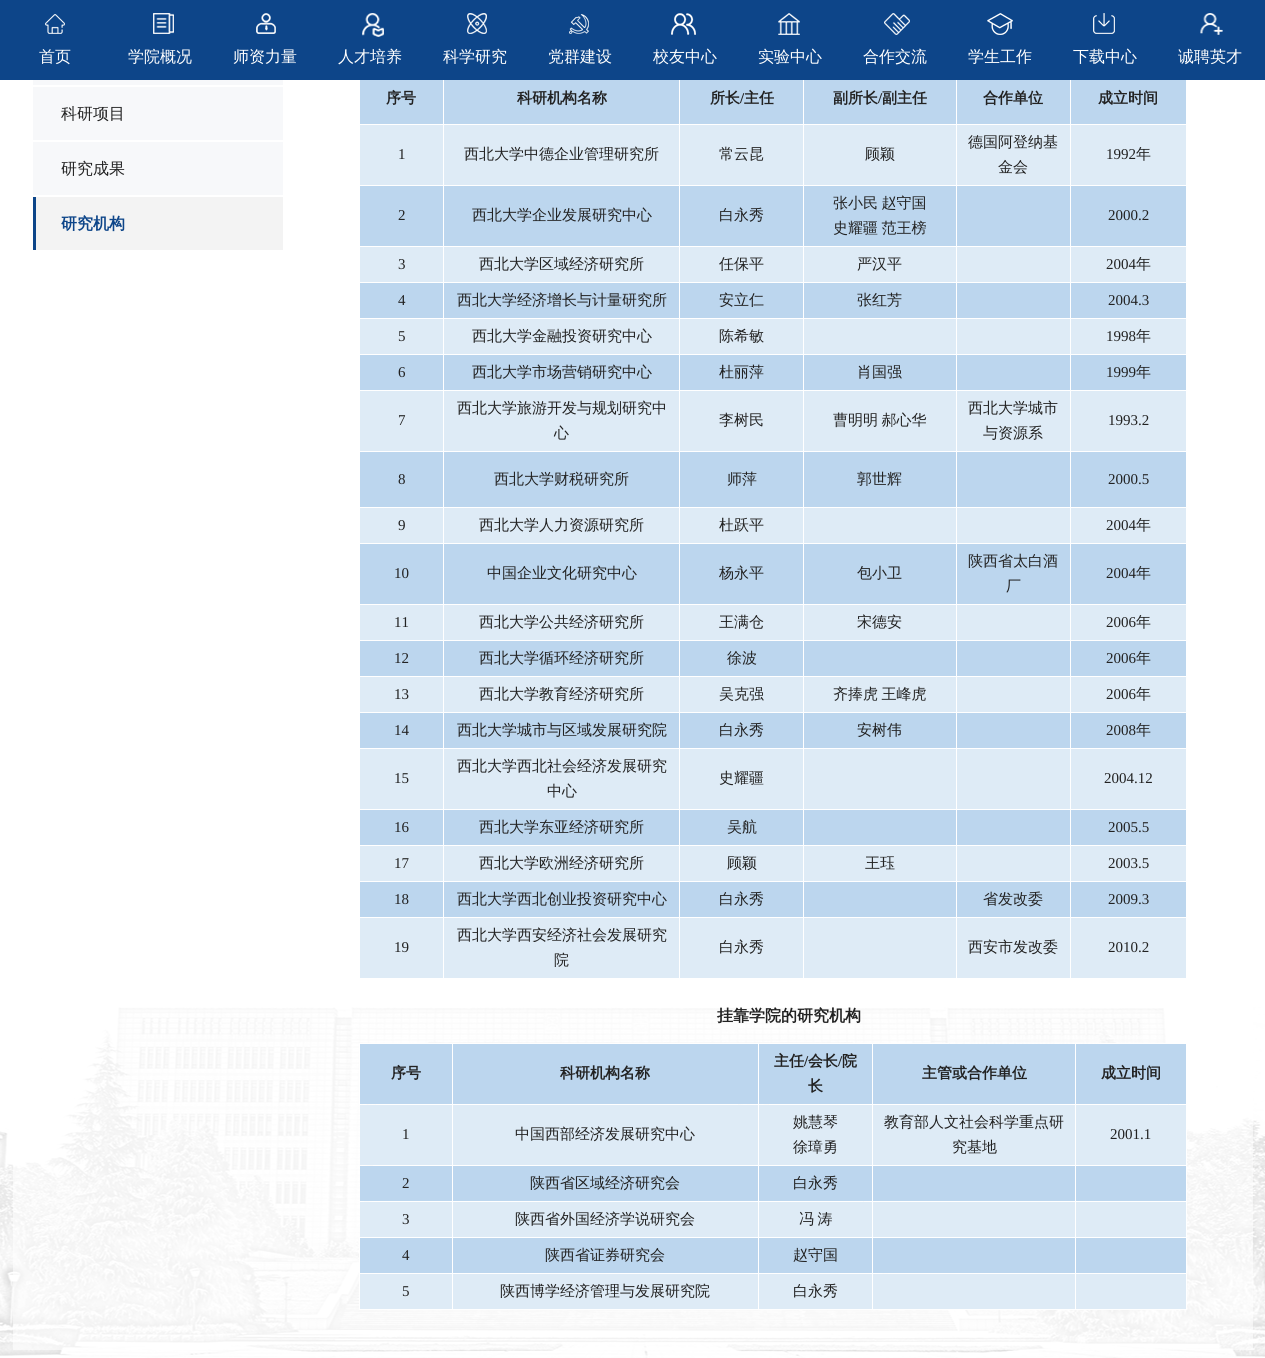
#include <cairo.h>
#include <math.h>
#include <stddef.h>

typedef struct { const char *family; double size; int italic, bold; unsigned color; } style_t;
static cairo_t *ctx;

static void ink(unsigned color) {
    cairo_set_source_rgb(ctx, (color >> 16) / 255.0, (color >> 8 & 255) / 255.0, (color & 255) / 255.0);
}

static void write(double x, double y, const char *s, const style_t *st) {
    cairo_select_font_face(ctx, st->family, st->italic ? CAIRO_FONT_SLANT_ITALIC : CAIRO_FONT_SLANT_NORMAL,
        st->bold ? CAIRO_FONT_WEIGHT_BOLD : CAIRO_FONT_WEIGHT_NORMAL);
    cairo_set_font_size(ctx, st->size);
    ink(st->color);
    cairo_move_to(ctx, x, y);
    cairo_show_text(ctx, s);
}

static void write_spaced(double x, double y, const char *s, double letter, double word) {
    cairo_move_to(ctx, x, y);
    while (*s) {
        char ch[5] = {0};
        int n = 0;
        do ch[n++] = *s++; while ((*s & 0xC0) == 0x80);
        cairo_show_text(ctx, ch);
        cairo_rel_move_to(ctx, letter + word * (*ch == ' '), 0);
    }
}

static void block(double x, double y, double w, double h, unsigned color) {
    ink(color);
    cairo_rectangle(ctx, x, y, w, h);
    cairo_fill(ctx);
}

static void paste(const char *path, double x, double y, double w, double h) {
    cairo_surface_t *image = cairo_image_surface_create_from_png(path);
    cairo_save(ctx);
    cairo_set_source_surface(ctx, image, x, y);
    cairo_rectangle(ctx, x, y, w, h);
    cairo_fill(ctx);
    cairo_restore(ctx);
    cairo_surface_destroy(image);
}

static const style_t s1 = {"WenQuanYi Zen Hei Medium", 16, 0, 0, 0xffffff};
static const style_t s2 = {"WenQuanYi Zen Hei Medium", 16, 0, 0, 0x222222};
static const style_t s3 = {"WenQuanYi Zen Hei", 16, 0, 1, 0x0d4589};
static const style_t s4 = {"WenQuanYi Zen Hei", 15, 0, 1, 0x222222};
static const style_t s5 = {"Liberation Serif", 15, 0, 1, 0x222222};
static const style_t s6 = {"Liberation Serif", 15, 0, 0, 0x222222};
static const style_t s7 = {"WenQuanYi Zen Hei Medium", 15, 0, 0, 0x222222};
static const style_t s8 = {"WenQuanYi Zen Hei", 16, 0, 1, 0x222222};

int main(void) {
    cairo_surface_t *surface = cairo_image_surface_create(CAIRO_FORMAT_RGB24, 1265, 1358);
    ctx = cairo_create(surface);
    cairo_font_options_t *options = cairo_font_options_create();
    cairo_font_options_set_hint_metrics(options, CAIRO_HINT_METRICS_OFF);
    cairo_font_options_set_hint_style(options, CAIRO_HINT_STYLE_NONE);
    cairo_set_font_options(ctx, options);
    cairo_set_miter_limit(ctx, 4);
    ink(0xffffff);
    cairo_paint(ctx);
    paste("pic1.png", 0, 1007, 1265, 351);
    block(360, 80, 826, 44, 0xbcd6ee);
    block(360, 125, 826, 60, 0xdeebf6);
    block(360, 186, 826, 60, 0xbcd6ee);
    block(360, 247, 826, 35, 0xdeebf6);
    block(360, 283, 826, 35, 0xbcd6ee);
    block(360, 319, 826, 35, 0xdeebf6);
    block(360, 355, 826, 35, 0xbcd6ee);
    block(360, 391, 826, 60, 0xdeebf6);
    block(360, 452, 826, 55, 0xbcd6ee);
    block(360, 508, 826, 35, 0xdeebf6);
    block(360, 544, 826, 60, 0xbcd6ee);
    block(360, 605, 826, 35, 0xdeebf6);
    block(360, 641, 826, 35, 0xbcd6ee);
    block(360, 677, 826, 35, 0xdeebf6);
    block(360, 713, 826, 35, 0xbcd6ee);
    block(360, 749, 826, 60, 0xdeebf6);
    block(360, 810, 826, 35, 0xbcd6ee);
    block(360, 846, 826, 35, 0xdeebf6);
    block(360, 882, 826, 35, 0xbcd6ee);
    block(360, 918, 826, 60, 0xdeebf6);
    block(443, 72, 1, 907, 0xffffff);
    block(679, 72, 1, 907, 0xffffff);
    block(803, 72, 1, 907, 0xffffff);
    block(956, 72, 1, 907, 0xffffff);
    block(1070, 72, 1, 907, 0xffffff);
    block(0, 0, 1265, 80, 0x0d4589);
    paste("pic2.png", 45, 14, 20, 20);
    write(39, 62, "首页", &s1);
    paste("pic3.png", 153, 13, 21, 21);
    write(128, 62, "学院概况", &s1);
    paste("pic4.png", 256, 13, 20, 21);
    write(233, 62, "师资力量", &s1);
    paste("pic5.png", 362, 13, 22, 24);
    write(338, 62, "人才培养", &s1);
    paste("pic6.png", 467, 13, 20, 21);
    write(443, 62, "科学研究", &s1);
    paste("pic7.png", 569, 14, 20, 20);
    write(548, 62, "党群建设", &s1);
    paste("pic8.png", 671, 13, 25, 22);
    write(653, 62, "校友中心", &s1);
    paste("pic9.png", 778, 13, 22, 22);
    write(758, 62, "实验中心", &s1);
    paste("pic10.png", 884, 13, 26, 22);
    write(863, 62, "合作交流", &s1);
    paste("pic11.png", 987, 13, 26, 22);
    write(968, 62, "学生工作", &s1);
    paste("pic12.png", 1093, 13, 22, 21);
    write(1073, 62, "下载中心", &s1);
    paste("pic13.png", 1200, 13, 23, 22);
    write(1178, 62, "诚聘英才", &s1);
    block(33, 80, 250, 5, 0xf7f8fa);
    block(33, 87, 250, 53, 0xf7f8fa);
    write(61, 119, "科研项目", &s2);
    block(33, 142, 250, 53, 0xf7f8fa);
    write(61, 174, "研究成果", &s2);
    block(36, 197, 247, 53, 0xf3f3f3);
    block(33, 197, 3, 53, 0x0d4589);
    write(61, 229, "研究机构", &s3);
    write(386, 103, "序号", &s4);
    write(517, 103, "科研机构名称", &s4);
    write(710, 103, "所长", &s4);
    write(740, 103, "/", &s5);
    write(744, 103, "主任", &s4);
    write(833, 103, "副所长", &s4);
    write(878, 103, "/", &s5);
    write(882, 103, "副主任", &s4);
    write(983, 103, "合作单位", &s4);
    write(1098, 103, "成立时间", &s4);
    write(398, 159, "1", &s6);
    write(464, 159, "西北大学中德企业管理研究所", &s7);
    write(719, 159, "常云昆", &s7);
    write(865, 159, "顾颖", &s7);
    write(968, 147, "德国阿登纳基", &s7);
    write(998, 172, "金会", &s7);
    write(1106, 159, "1992", &s6);
    write(1136, 159, "年", &s7);
    write(398, 220, "2", &s6);
    write(472, 220, "西北大学企业发展研究中心", &s7);
    write(719, 220, "白永秀", &s7);
    write_spaced(833, 208, "张小民 赵守国", 0, -1);
    write_spaced(833, 233, "史耀疆 范王榜", 0, -1);
    write(1108, 220, "2000.2", &s6);
    write(398, 269, "3", &s6);
    write(479, 269, "西北大学区域经济研究所", &s7);
    write(719, 269, "任保平", &s7);
    write(857, 269, "严汉平", &s7);
    write(1106, 269, "2004", &s6);
    write(1136, 269, "年", &s7);
    write(398, 305, "4", &s6);
    write(457, 305, "西北大学经济增长与计量研究所", &s7);
    write(719, 305, "安立仁", &s7);
    write(857, 305, "张红芳", &s7);
    write(1108, 305, "2004.3", &s6);
    write(398, 341, "5", &s6);
    write(472, 341, "西北大学金融投资研究中心", &s7);
    write(719, 341, "陈希敏", &s7);
    write(1106, 341, "1998", &s6);
    write(1136, 341, "年", &s7);
    write(398, 377, "6", &s6);
    write(472, 377, "西北大学市场营销研究中心", &s7);
    write(719, 377, "杜丽萍", &s7);
    write(857, 377, "肖国强", &s7);
    write(1106, 377, "1999", &s6);
    write(1136, 377, "年", &s7);
    write(398, 425, "7", &s6);
    write(457, 413, "西北大学旅游开发与规划研究中", &s7);
    write(554, 438, "心", &s7);
    write(719, 425, "李树民", &s7);
    write_spaced(833, 425, "曹明明 郝心华", 0, -1);
    write(968, 413, "西北大学城市", &s7);
    write(983, 438, "与资源系", &s7);
    write(1108, 425, "1993.2", &s6);
    write(398, 484, "8", &s6);
    write(494, 484, "西北大学财税研究所", &s7);
    write(727, 484, "师萍", &s7);
    write(857, 484, "郭世辉", &s7);
    write(1108, 484, "2000.5", &s6);
    write(398, 530, "9", &s6);
    write(479, 530, "西北大学人力资源研究所", &s7);
    write(719, 530, "杜跃平", &s7);
    write(1106, 530, "2004", &s6);
    write(1136, 530, "年", &s7);
    write(394, 578, "10", &s6);
    write(487, 578, "中国企业文化研究中心", &s7);
    write(719, 578, "杨永平", &s7);
    write(857, 578, "包小卫", &s7);
    write(968, 566, "陕西省太白酒", &s7);
    write(1006, 591, "厂", &s7);
    write(1106, 578, "2004", &s6);
    write(1136, 578, "年", &s7);
    write(394, 627, "11", &s6);
    write(479, 627, "西北大学公共经济研究所", &s7);
    write(719, 627, "王满仓", &s7);
    write(857, 627, "宋德安", &s7);
    write(1106, 627, "2006", &s6);
    write(1136, 627, "年", &s7);
    write(394, 663, "12", &s6);
    write(479, 663, "西北大学循环经济研究所", &s7);
    write(727, 663, "徐波", &s7);
    write(1106, 663, "2006", &s6);
    write(1136, 663, "年", &s7);
    write(394, 699, "13", &s6);
    write(479, 699, "西北大学教育经济研究所", &s7);
    write(719, 699, "吴克强", &s7);
    write_spaced(833, 699, "齐捧虎 王峰虎", 0, -1);
    write(1106, 699, "2006", &s6);
    write(1136, 699, "年", &s7);
    write(394, 735, "14", &s6);
    write(457, 735, "西北大学城市与区域发展研究院", &s7);
    write(719, 735, "白永秀", &s7);
    write(857, 735, "安树伟", &s7);
    write(1106, 735, "2008", &s6);
    write(1136, 735, "年", &s7);
    write(394, 783, "15", &s6);
    write(457, 771, "西北大学西北社会经济发展研究", &s7);
    write(547, 796, "中心", &s7);
    write(719, 783, "史耀疆", &s7);
    write(1104, 783, "2004.12", &s6);
    write(394, 832, "16", &s6);
    write(479, 832, "西北大学东亚经济研究所", &s7);
    write(727, 832, "吴航", &s7);
    write(1108, 832, "2005.5", &s6);
    write(394, 868, "17", &s6);
    write(479, 868, "西北大学欧洲经济研究所", &s7);
    write(727, 868, "顾颖", &s7);
    write(865, 868, "王珏", &s7);
    write(1108, 868, "2003.5", &s6);
    write(394, 904, "18", &s6);
    write(457, 904, "西北大学西北创业投资研究中心", &s7);
    write(719, 904, "白永秀", &s7);
    write(983, 904, "省发改委", &s7);
    write(1108, 904, "2009.3", &s6);
    write(394, 952, "19", &s6);
    write(457, 940, "西北大学西安经济社会发展研究", &s7);
    write(554, 965, "院", &s7);
    write(719, 952, "白永秀", &s7);
    write(968, 952, "西安市发改委", &s7);
    write(1108, 952, "2010.2", &s6);
    write(717, 1021, "挂靠学院的研究机构", &s8);
    block(360, 1044, 826, 60, 0xbcd6ee);
    block(872, 1043, 77, 1, 0xffffff);
    block(1075, 1104, 93, 1, 0xffffff);
    block(360, 1105, 826, 60, 0xdeebf6);
    block(1075, 1165, 112, 1, 0xffffff);
    block(360, 1166, 826, 35, 0xbcd6ee);
    block(1075, 1201, 112, 1, 0xffffff);
    block(360, 1202, 826, 35, 0xdeebf6);
    block(1075, 1237, 112, 1, 0xffffff);
    block(360, 1238, 826, 35, 0xbcd6ee);
    block(1075, 1273, 112, 1, 0xffffff);
    block(360, 1274, 826, 35, 0xdeebf6);
    block(1186, 1273, 1, 37, 0xffffff);
    block(1075, 1309, 112, 1, 0xffffff);
    block(1075, 1273, 1, 37, 0xffffff);
    block(889, 1273, 187, 1, 0xffffff);
    block(1075, 1237, 1, 37, 0xffffff);
    block(872, 1237, 204, 1, 0xffffff);
    block(1075, 1201, 1, 37, 0xffffff);
    block(872, 1201, 204, 1, 0xffffff);
    block(1075, 1165, 1, 37, 0xffffff);
    block(872, 1165, 204, 1, 0xffffff);
    block(1075, 1104, 1, 62, 0xffffff);
    block(872, 1104, 204, 1, 0xffffff);
    block(872, 1309, 204, 1, 0xffffff);
    block(872, 1273, 1, 37, 0xffffff);
    block(758, 1273, 115, 1, 0xffffff);
    block(872, 1237, 1, 37, 0xffffff);
    block(758, 1237, 115, 1, 0xffffff);
    block(872, 1201, 1, 37, 0xffffff);
    block(872, 1165, 1, 37, 0xffffff);
    block(758, 1165, 115, 1, 0xffffff);
    block(872, 1104, 1, 62, 0xffffff);
    block(769, 1104, 104, 1, 0xffffff);
    block(872, 1043, 1, 62, 0xffffff);
    block(758, 1043, 115, 1, 0xffffff);
    block(758, 1201, 105, 1, 0xffffff);
    block(758, 1309, 115, 1, 0xffffff);
    block(758, 1273, 1, 37, 0xffffff);
    block(452, 1273, 307, 1, 0xffffff);
    block(758, 1237, 1, 37, 0xffffff);
    block(452, 1237, 307, 1, 0xffffff);
    block(758, 1201, 1, 37, 0xffffff);
    block(452, 1201, 307, 1, 0xffffff);
    block(758, 1165, 1, 37, 0xffffff);
    block(452, 1165, 307, 1, 0xffffff);
    block(758, 1104, 1, 62, 0xffffff);
    block(758, 1043, 1, 62, 0xffffff);
    block(452, 1043, 307, 1, 0xffffff);
    block(452, 1104, 286, 1, 0xffffff);
    block(452, 1309, 307, 1, 0xffffff);
    block(452, 1273, 1, 37, 0xffffff);
    block(359, 1273, 94, 1, 0xffffff);
    block(452, 1237, 1, 37, 0xffffff);
    block(359, 1237, 94, 1, 0xffffff);
    block(452, 1201, 1, 37, 0xffffff);
    block(373, 1201, 80, 1, 0xffffff);
    block(452, 1165, 1, 37, 0xffffff);
    block(373, 1165, 80, 1, 0xffffff);
    block(452, 1104, 1, 62, 0xffffff);
    block(376, 1104, 77, 1, 0xffffff);
    block(452, 1043, 1, 62, 0xffffff);
    block(359, 1043, 94, 1, 0xffffff);
    block(359, 1043, 1, 62, 0xffffff);
    write(391, 1078, "序号", &s4);
    write(560, 1078, "科研机构名称", &s4);
    write(774, 1066, "主任", &s4);
    write(804, 1066, "/", &s5);
    write(808, 1066, "会长", &s4);
    write(838, 1066, "/", &s5);
    write(842, 1066, "院", &s4);
    write(808, 1091, "长", &s4);
    write(922, 1078, "主管或合作单位", &s4);
    block(1098, 1043, 68, 1, 0xffffff);
    block(1075, 1043, 1, 62, 0xffffff);
    write(1101, 1078, "成立时间", &s4);
    write(402, 1139, "1", &s6);
    write(515, 1139, "中国西部经济发展研究中心", &s7);
    write(793, 1127, "姚慧琴", &s7);
    write(793, 1152, "徐璋勇", &s7);
    write(884, 1127, "教育部人文社会科学重点研", &s7);
    write(952, 1152, "究基地", &s7);
    write(1110, 1139, "2001.1", &s6);
    write(402, 1188, "2", &s6);
    write(530, 1188, "陕西省区域经济研究会", &s7);
    write(793, 1188, "白永秀", &s7);
    block(1186, 1237, 1, 37, 0xffffff);
    block(1186, 1201, 1, 37, 0xffffff);
    block(1186, 1130, 1, 72, 0xffffff);
    write(402, 1224, "3", &s6);
    write(515, 1224, "陕西省外国经济学说研究会", &s7);
    write_spaced(799, 1224, "冯 涛", 0, -1);
    block(359, 1309, 94, 1, 0xffffff);
    block(359, 1273, 1, 37, 0xffffff);
    block(359, 1237, 1, 37, 0xffffff);
    write(402, 1260, "4", &s6);
    write(545, 1260, "陕西省证券研究会", &s7);
    write(793, 1260, "赵守国", &s7);
    write(402, 1296, "5", &s6);
    write(500, 1296, "陕西博学经济管理与发展研究院", &s7);
    write(793, 1296, "白永秀", &s7);
    cairo_surface_write_to_png(surface, "screenshot.png");
    cairo_font_options_destroy(options);
    cairo_destroy(ctx);
    cairo_surface_destroy(surface);
    return 0;
}
